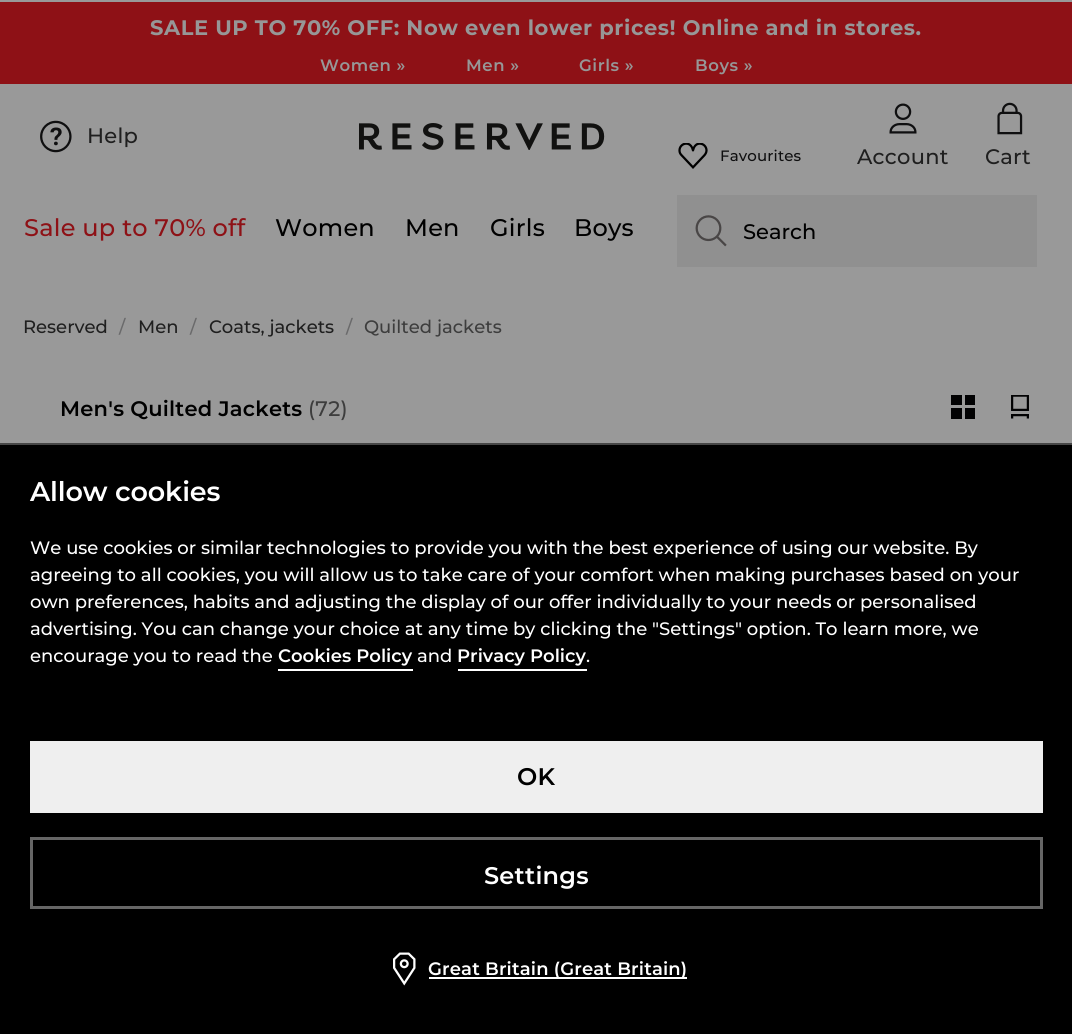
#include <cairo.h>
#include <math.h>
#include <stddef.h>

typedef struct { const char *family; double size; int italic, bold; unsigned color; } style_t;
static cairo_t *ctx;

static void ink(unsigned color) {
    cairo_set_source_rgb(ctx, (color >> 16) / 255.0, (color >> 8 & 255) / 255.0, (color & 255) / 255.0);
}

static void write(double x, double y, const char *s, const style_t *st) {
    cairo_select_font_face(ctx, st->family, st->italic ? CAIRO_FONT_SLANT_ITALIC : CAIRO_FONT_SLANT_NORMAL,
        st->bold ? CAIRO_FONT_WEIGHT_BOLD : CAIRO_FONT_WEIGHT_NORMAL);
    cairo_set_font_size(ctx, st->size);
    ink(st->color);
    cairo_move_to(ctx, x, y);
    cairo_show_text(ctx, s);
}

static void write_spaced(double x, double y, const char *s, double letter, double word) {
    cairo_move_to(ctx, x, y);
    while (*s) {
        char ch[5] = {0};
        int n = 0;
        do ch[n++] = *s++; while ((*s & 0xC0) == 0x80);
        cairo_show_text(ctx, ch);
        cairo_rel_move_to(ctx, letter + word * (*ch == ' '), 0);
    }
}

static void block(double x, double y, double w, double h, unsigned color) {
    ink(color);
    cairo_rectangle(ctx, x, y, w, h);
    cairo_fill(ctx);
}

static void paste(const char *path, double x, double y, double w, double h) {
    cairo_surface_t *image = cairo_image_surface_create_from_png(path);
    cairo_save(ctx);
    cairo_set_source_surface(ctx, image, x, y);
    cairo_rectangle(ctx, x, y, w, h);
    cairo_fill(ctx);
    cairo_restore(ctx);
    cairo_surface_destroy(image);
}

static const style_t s1 = {"Montserrat Medium", 21, 0, 0, 0x000000};
static const style_t s2 = {"Montserrat Medium", 18, 0, 0, 0x1f1f1f};
static const style_t s3 = {"Montserrat Medium", 18, 0, 0, 0x6a6a6b};
static const style_t s4 = {"Montserrat Medium", 18, 0, 0, 0x3d3d3d};
static const style_t s5 = {"Montserrat Medium", 18, 0, 0, 0xffffff};
static const style_t s6 = {"Montserrat SemiBold", 18, 0, 0, 0xffffff};

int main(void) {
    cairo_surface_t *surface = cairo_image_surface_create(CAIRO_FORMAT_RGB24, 1072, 1034);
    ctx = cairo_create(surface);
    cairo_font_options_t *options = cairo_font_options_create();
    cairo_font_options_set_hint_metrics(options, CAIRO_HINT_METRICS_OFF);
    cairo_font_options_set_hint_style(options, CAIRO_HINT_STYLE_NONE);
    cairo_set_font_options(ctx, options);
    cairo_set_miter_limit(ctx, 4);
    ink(0x999999);
    cairo_paint(ctx);
    block(0, 2, 1072, 82, 0x8e1116);
    cairo_select_font_face(ctx, "Montserrat", CAIRO_FONT_SLANT_NORMAL, CAIRO_FONT_WEIGHT_BOLD);
    cairo_set_font_size(ctx, 21);
    ink(0x979797);
    write_spaced(150, 35, "SALE UP TO 70% OFF: Now even lower prices! Online and in stores.", 0.6, 0);
    cairo_select_font_face(ctx, "Montserrat SemiBold", CAIRO_FONT_SLANT_NORMAL, CAIRO_FONT_WEIGHT_NORMAL);
    cairo_set_font_size(ctx, 16.5);
    write_spaced(320, 71, "Women »", 0.6, 0);
    write_spaced(466, 71, "Men »", 0.6, 0);
    write_spaced(579, 71, "Girls »", 0.6, 0);
    write_spaced(695, 71, "Boys »", 0.6, 0);
    paste("pic1.png", 40, 120, 32, 33);
    cairo_select_font_face(ctx, "Montserrat Medium", CAIRO_FONT_SLANT_NORMAL, CAIRO_FONT_WEIGHT_NORMAL);
    cairo_set_font_size(ctx, 21);
    ink(0x1f1f1f);
    write_spaced(87, 143, "Help", 0.25, 0);
    paste("pic2.png", 359, 123, 246, 27);
    paste("pic3.png", 678, 143, 30, 26);
    cairo_set_font_size(ctx, 15);
    ink(0x0f0f10);
    write_spaced(720, 161, "Favourites", 0.15, 0);
    paste("pic4.png", 889, 103, 28, 31);
    cairo_set_font_size(ctx, 21);
    ink(0x1f1f1f);
    write_spaced(857, 164, "Account", 0.25, 0);
    paste("pic5.png", 997, 102, 26, 33);
    write_spaced(985, 164, "Cart", 0.25, 0);
    cairo_set_font_size(ctx, 24);
    ink(0x8e1116);
    write_spaced(24, 236, "Sale up to 70% off", 0.25, 0);
    ink(0x000000);
    write_spaced(275, 236, "Women", 0.25, 0);
    write_spaced(405, 236, "Men", 0.25, 0);
    write_spaced(490, 236, "Girls", 0.25, 0);
    write_spaced(574, 236, "Boys", 0.25, 0);
    block(677, 195, 360, 72, 0x909090);
    paste("pic6.png", 695, 215, 32, 32);
    write(743, 239, "Search", &s1);
    write(23, 333, "Reserved", &s2);
    write(119, 333, "/", &s3);
    write(138, 333, "Men", &s2);
    write(190, 333, "/", &s3);
    write(209, 333, "Coats, jackets", &s2);
    write(346, 333, "/", &s3);
    write(364, 333, "Quilted jackets", &s4);
    cairo_select_font_face(ctx, "Montserrat SemiBold", CAIRO_FONT_SLANT_NORMAL, CAIRO_FONT_WEIGHT_NORMAL);
    cairo_set_font_size(ctx, 21);
    ink(0x000000);
    write_spaced(60, 416, "Men's Quilted Jackets", 0.25, 0);
    cairo_select_font_face(ctx, "Montserrat Medium", CAIRO_FONT_SLANT_NORMAL, CAIRO_FONT_WEIGHT_NORMAL);
    ink(0x3d3d3d);
    write_spaced(308, 416, "(72)", 0.25, 0);
    block(951, 395, 11, 10, 0x020203);
    block(965, 395, 10, 10, 0x020203);
    block(951, 408, 11, 11, 0x020203);
    block(965, 408, 10, 11, 0x020203);
    paste("pic7.png", 1011, 395, 18, 24);
    block(0, 445, 1072, 589, 0x000000);
    block(0, 443, 1072, 2, 0x474747);
    cairo_select_font_face(ctx, "Montserrat SemiBold", CAIRO_FONT_SLANT_NORMAL, CAIRO_FONT_WEIGHT_NORMAL);
    cairo_set_font_size(ctx, 27);
    ink(0xffffff);
    write_spaced(30, 501, "Allow cookies", -0.1, 0);
    write(30, 554, "We use cookies or similar technologies to provide you with the best experience of using our website. By", &s5);
    write(30, 581, "agreeing to all cookies, you will allow us to take care of your comfort when making purchases based on your", &s5);
    write(30, 608, "own preferences, habits and adjusting the display of our offer individually to your needs or personalised", &s5);
    write(30, 635, "advertising. You can change your choice at any time by clicking the \"Settings\" option. To learn more, we", &s5);
    write(30, 662, "encourage you to read the", &s5);
    write(278, 662, "Cookies Policy", &s6);
    block(278, 669, 135, 2, 0xffffff);
    write(417, 662, "and", &s5);
    write(457, 662, "Privacy Policy", &s6);
    block(458, 669, 129, 2, 0xffffff);
    write(586, 662, ".", &s5);
    block(30, 741, 1013, 72, 0xefefef);
    cairo_select_font_face(ctx, "Montserrat SemiBold", CAIRO_FONT_SLANT_NORMAL, CAIRO_FONT_WEIGHT_NORMAL);
    cairo_set_font_size(ctx, 24);
    ink(0x000000);
    write_spaced(517, 785, "OK", 0.25, 0);
    cairo_rectangle(ctx, 31.5, 838.5, 1010, 69);
    ink(0x666666);
    cairo_set_line_width(ctx, 3);
    cairo_stroke(ctx);
    ink(0xffffff);
    write_spaced(484, 884, "Settings", 0.25, 0);
    paste("pic8.png", 393, 952, 23, 34);
    block(429, 977, 258, 2, 0xffffff);
    cairo_set_font_size(ctx, 18);
    write_spaced(428, 975, "Great Britain (Great Britain)", 0.15, 0);
    cairo_surface_write_to_png(surface, "screenshot.png");
    cairo_font_options_destroy(options);
    cairo_destroy(ctx);
    cairo_surface_destroy(surface);
    return 0;
}
